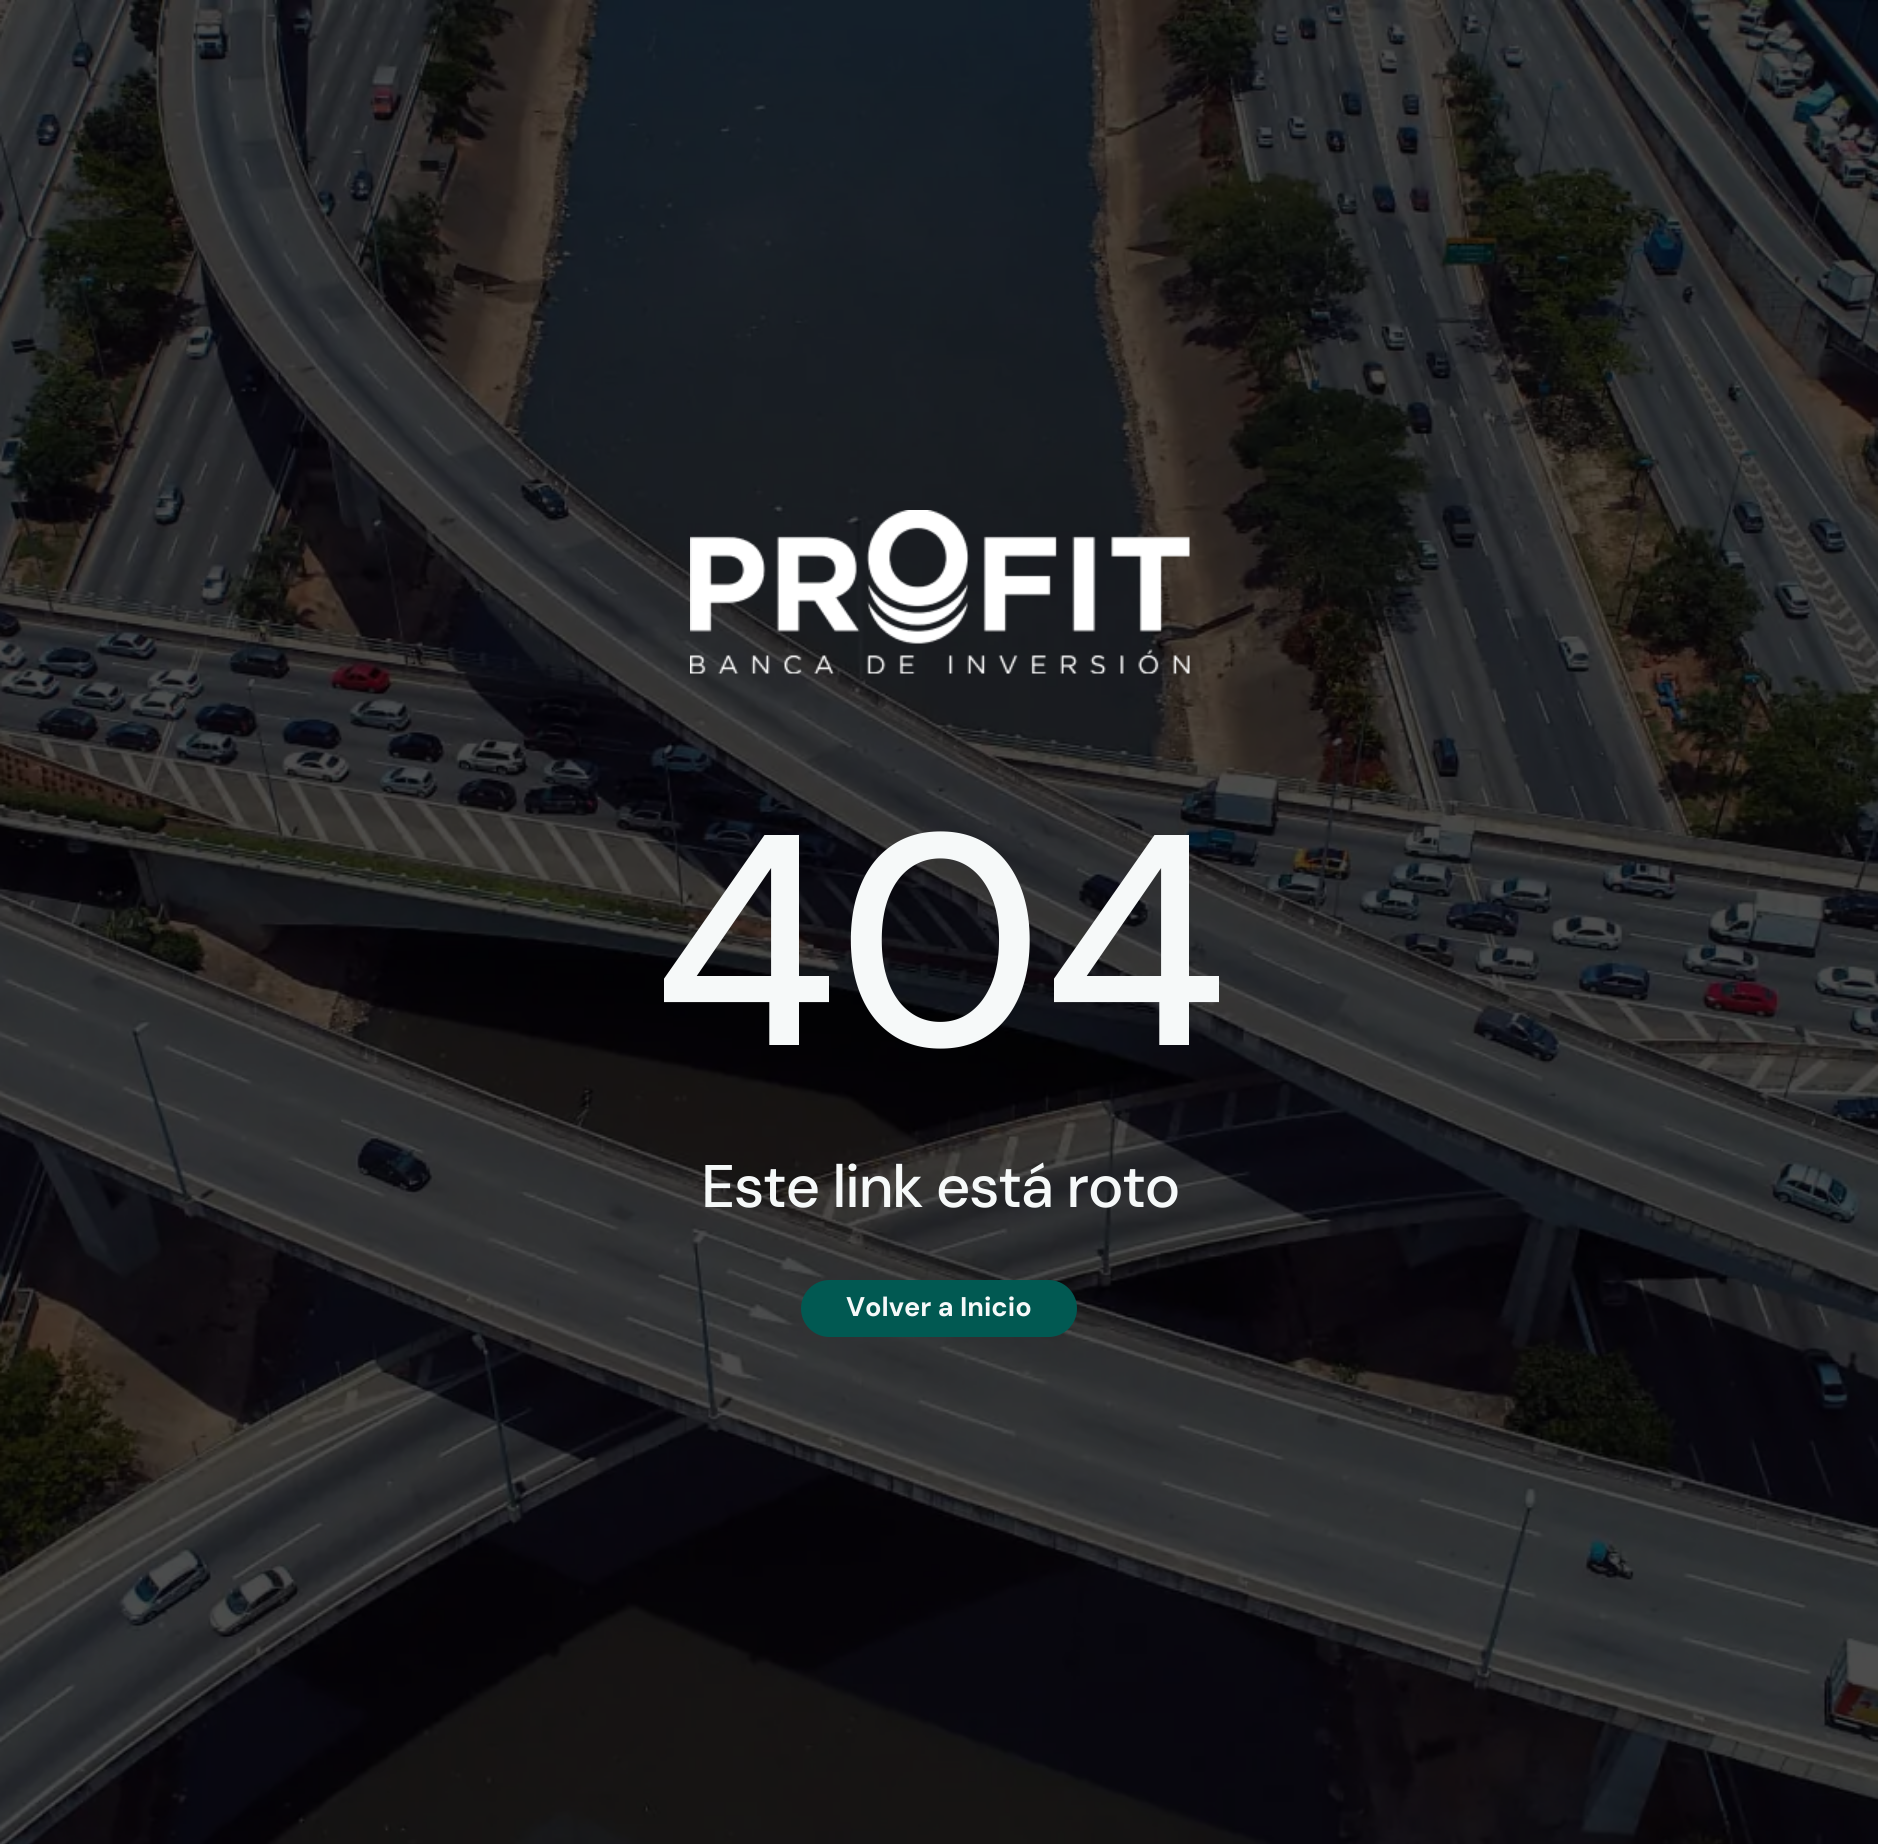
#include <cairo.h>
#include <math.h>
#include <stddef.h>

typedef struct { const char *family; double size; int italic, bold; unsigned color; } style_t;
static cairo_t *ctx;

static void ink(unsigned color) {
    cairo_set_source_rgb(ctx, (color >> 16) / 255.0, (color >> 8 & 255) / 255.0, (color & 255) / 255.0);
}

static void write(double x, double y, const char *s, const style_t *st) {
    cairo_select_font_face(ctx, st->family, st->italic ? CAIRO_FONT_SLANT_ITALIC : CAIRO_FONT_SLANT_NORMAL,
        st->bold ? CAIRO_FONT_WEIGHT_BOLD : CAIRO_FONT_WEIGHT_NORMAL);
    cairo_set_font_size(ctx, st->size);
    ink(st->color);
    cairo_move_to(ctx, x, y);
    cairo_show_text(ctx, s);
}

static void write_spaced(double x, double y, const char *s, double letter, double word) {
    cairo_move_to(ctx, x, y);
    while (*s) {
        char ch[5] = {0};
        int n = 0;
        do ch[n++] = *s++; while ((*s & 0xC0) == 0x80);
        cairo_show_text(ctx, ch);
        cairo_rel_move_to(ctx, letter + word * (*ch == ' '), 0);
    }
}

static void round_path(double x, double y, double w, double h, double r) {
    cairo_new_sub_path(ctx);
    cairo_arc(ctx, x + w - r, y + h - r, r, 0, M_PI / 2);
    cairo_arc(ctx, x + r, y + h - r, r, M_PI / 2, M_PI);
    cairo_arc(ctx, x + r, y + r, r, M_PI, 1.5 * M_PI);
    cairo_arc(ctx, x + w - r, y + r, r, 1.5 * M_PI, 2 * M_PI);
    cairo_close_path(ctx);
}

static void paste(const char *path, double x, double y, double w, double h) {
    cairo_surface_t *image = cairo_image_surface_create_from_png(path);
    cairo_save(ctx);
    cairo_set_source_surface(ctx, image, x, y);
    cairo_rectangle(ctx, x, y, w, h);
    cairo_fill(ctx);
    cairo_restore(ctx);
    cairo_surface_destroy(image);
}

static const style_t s1 = {"DM Sans", 27, 0, 1, 0xf6f9f9};

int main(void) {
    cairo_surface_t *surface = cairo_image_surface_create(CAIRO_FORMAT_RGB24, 1878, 1844);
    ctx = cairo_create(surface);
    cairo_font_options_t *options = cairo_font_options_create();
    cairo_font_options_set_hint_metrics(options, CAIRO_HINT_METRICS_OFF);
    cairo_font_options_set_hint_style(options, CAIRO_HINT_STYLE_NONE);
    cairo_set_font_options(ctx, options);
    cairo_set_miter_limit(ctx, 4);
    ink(0xffffff);
    cairo_paint(ctx);
    paste("pic1.png", 0, 0, 1878, 1844);
    paste("pic2.png", 690, 510, 500, 164);
    cairo_select_font_face(ctx, "DM Sans Medium", CAIRO_FONT_SLANT_NORMAL, CAIRO_FONT_WEIGHT_NORMAL);
    cairo_set_font_size(ctx, 300);
    ink(0xf6f9f9);
    write_spaced(652, 1045, "404", -1.6, 0);
    cairo_set_font_size(ctx, 60);
    write_spaced(701, 1207, "Este link está roto", -1.6, 0);
    ink(0x015952);
    round_path(801, 1280, 276, 57, 28.5);
    cairo_fill(ctx);
    write(846, 1316, "Volver a Inicio", &s1);
    cairo_surface_write_to_png(surface, "screenshot.png");
    cairo_font_options_destroy(options);
    cairo_destroy(ctx);
    cairo_surface_destroy(surface);
    return 0;
}
